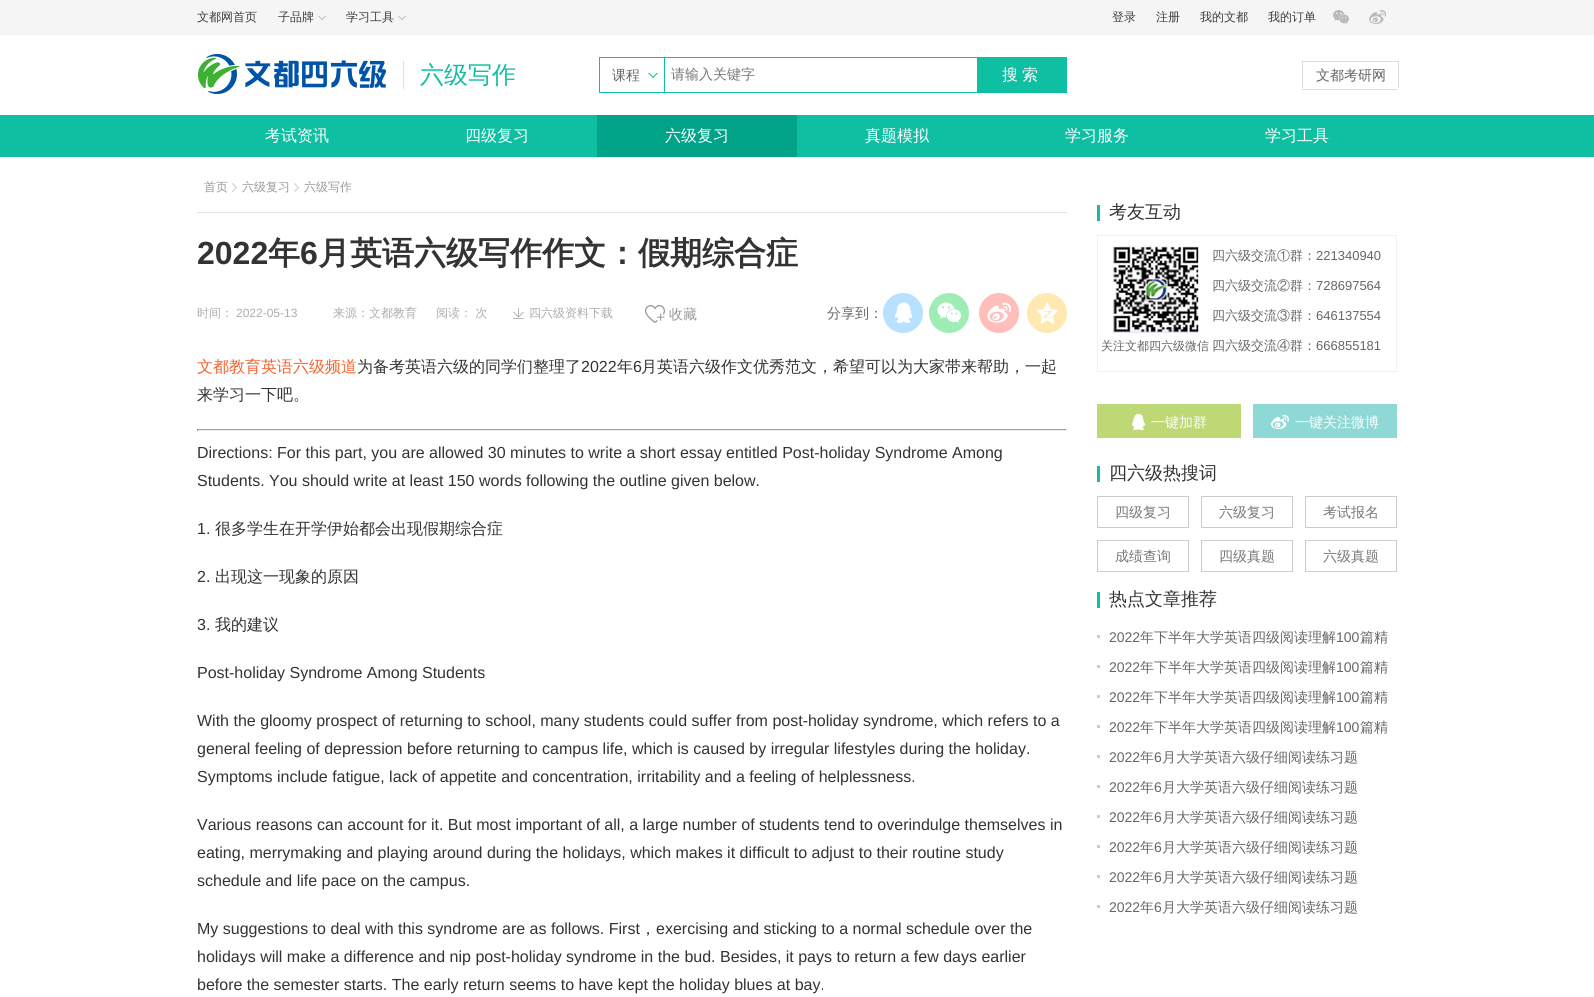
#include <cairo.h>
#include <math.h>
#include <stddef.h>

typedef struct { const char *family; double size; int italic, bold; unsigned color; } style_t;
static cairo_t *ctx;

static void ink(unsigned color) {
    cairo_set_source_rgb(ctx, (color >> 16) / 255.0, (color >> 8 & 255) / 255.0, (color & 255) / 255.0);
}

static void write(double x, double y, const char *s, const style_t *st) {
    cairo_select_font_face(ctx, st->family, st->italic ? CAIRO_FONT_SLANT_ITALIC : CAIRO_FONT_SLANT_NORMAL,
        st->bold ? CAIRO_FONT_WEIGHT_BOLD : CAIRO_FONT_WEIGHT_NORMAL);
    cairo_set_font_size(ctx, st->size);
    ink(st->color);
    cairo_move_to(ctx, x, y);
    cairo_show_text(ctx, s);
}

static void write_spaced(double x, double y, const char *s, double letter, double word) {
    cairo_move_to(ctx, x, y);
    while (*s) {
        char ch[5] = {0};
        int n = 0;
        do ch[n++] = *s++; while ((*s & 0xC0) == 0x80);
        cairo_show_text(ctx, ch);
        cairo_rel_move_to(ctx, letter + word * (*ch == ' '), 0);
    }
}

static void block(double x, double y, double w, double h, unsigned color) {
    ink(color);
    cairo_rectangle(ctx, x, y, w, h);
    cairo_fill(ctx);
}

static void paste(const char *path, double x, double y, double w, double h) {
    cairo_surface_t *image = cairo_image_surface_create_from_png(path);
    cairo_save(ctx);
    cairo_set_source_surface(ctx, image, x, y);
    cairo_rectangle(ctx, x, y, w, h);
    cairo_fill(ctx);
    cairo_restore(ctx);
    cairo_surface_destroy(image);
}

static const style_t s1 = {"WenQuanYi Zen Hei Medium", 12, 0, 0, 0x3c3c3c};
static const style_t s2 = {"WenQuanYi Zen Hei Medium", 24, 0, 0, 0x0fbfa2};
static const style_t s3 = {"WenQuanYi Zen Hei Medium", 14, 0, 0, 0x666666};
static const style_t s4 = {"WenQuanYi Zen Hei Medium", 14, 0, 0, 0x777777};
static const style_t s5 = {"WenQuanYi Zen Hei Medium", 16, 0, 0, 0xffffff};
static const style_t s6 = {"WenQuanYi Zen Hei Medium", 12, 0, 0, 0x999999};
static const style_t s7 = {"Liberation Sans", 32, 0, 1, 0x333333};
static const style_t s8 = {"WenQuanYi Zen Hei", 32, 0, 1, 0x333333};
static const style_t s9 = {"WenQuanYi Zen Hei Medium", 12, 0, 0, 0xacacac};
static const style_t s10 = {"Liberation Sans", 12, 0, 0, 0xacacac};
static const style_t s11 = {"WenQuanYi Zen Hei Medium", 14, 0, 0, 0x999999};
static const style_t s12 = {"WenQuanYi Zen Hei Medium", 16, 0, 0, 0xf6632f};
static const style_t s13 = {"WenQuanYi Zen Hei Medium", 16, 0, 0, 0x333333};
static const style_t s14 = {"Liberation Sans", 16, 0, 0, 0x333333};
static const style_t s15 = {"WenQuanYi Zen Hei Medium", 18, 0, 0, 0x333333};
static const style_t s16 = {"WenQuanYi Zen Hei Medium", 12, 0, 0, 0x666666};
static const style_t s17 = {"WenQuanYi Zen Hei Medium", 13, 0, 0, 0x666666};
static const style_t s18 = {"Liberation Sans", 13, 0, 0, 0x666666};
static const style_t s19 = {"WenQuanYi Zen Hei Medium", 14, 0, 0, 0xffffff};
static const style_t s20 = {"Liberation Sans", 14, 0, 0, 0x666666};

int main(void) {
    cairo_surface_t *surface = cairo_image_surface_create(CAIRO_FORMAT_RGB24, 1594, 997);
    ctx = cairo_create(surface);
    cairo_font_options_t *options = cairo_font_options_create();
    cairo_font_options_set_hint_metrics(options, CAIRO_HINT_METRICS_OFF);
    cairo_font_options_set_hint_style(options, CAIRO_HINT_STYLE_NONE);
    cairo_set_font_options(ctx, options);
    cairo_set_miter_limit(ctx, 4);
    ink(0xffffff);
    cairo_paint(ctx);
    block(0, 0, 1594, 34, 0xf5f5f5);
    block(0, 34, 1594, 1, 0xeeeeee);
    write(197, 21, "文都网首页", &s1);
    paste("pic1.png", 318, 16, 8, 4);
    write(278, 21, "子品牌", &s1);
    paste("pic1.png", 398, 16, 8, 4);
    write(346, 21, "学习工具", &s1);
    write(1112, 21, "登录", &s1);
    write(1156, 21, "注册", &s1);
    write(1200, 21, "我的文都", &s1);
    write(1268, 21, "我的订单", &s1);
    paste("pic2.png", 1333, 10, 16, 14);
    paste("pic3.png", 1369, 10, 17, 14);
    paste("pic4.png", 198, 54, 188, 40);
    block(403, 61, 1, 28, 0xe0e0e0);
    write(420, 83, "六级写作", &s2);
    cairo_rectangle(ctx, 599.5, 57.5, 65, 35);
    cairo_set_line_width(ctx, 1);
    cairo_stroke(ctx);
    paste("pic5.png", 648, 73, 10, 5);
    write(612, 80, "课程", &s3);
    block(665, 57, 312, 1, 0x0fbfa2);
    block(665, 92, 312, 1, 0x0fbfa2);
    write(671, 79, "请输入关键字", &s4);
    block(977, 57, 90, 36, 0x0fbfa2);
    cairo_set_font_size(ctx, 16);
    ink(0xffffff);
    write_spaced(1002, 80, "搜索", 4, 0);
    block(1302, 89, 95, 1, 0xdddddd);
    block(1302, 61, 97, 1, 0xdddddd);
    block(1398, 61, 1, 27, 0xdddddd);
    block(1302, 61, 1, 27, 0xdddddd);
    write(1316, 80, "文都考研网", &s3);
    block(0, 115, 1594, 42, 0x0fbfa2);
    write(265, 141, "考试资讯", &s5);
    write(465, 141, "四级复习", &s5);
    block(597, 115, 200, 42, 0x01a388);
    write(665, 141, "六级复习", &s5);
    write(865, 141, "真题模拟", &s5);
    write(1065, 141, "学习服务", &s5);
    write(1265, 141, "学习工具", &s5);
    block(197, 212, 870, 1, 0xe5e5e5);
    write(204, 191, "首页", &s6);
    paste("pic6.png", 232, 183, 5, 9);
    write(242, 191, "六级复习", &s6);
    paste("pic6.png", 294, 183, 5, 9);
    write(304, 191, "六级写作", &s6);
    write(197, 264, "2022", &s7);
    write(268, 264, "年", &s8);
    write(300, 264, "6", &s7);
    write(318, 264, "月英语六级写作作文：假期综合症", &s8);
    write(197, 317, "时间：", &s9);
    write(236, 317, "2022-05-13", &s10);
    write(333, 317, "来源：文都教育", &s9);
    write(436, 317, "阅读： 次", &s9);
    paste("pic7.png", 513, 308, 11, 11);
    write(529, 317, "四六级资料下载", &s9);
    paste("pic8.png", 645, 305, 20, 18);
    write(669, 319, "收藏", &s11);
    write(827, 318, "分享到：", &s3);
    paste("pic9.png", 883, 293, 40, 40);
    paste("pic10.png", 929, 293, 40, 40);
    paste("pic11.png", 979, 293, 40, 40);
    paste("pic12.png", 1027, 293, 40, 40);
    write(197, 372, "文都教育英语六级频道", &s12);
    write(357, 372, "为备考英语六级的同学们整理了", &s13);
    write(581, 372, "2022", &s14);
    write(617, 372, "年", &s13);
    write(633, 372, "6", &s14);
    write(641, 372, "月英语六级作文优秀范文，希望可以为大家带来帮助，一起", &s13);
    write(197, 400, "来学习一下吧。", &s13);
    block(197, 429, 870, 1, 0x9f9f9f);
    block(1066, 429, 1, 2, 0xeeeeee);
    block(197, 430, 870, 1, 0xeeeeee);
    block(197, 429, 1, 2, 0x9f9f9f);
    write(197, 458, "Directions: For this part, you are allowed 30 minutes to write a short essay entitled Post-holiday Syndrome Among", &s14);
    write(197, 486, "Students. You should write at least 150 words following the outline given below.", &s14);
    write(197, 534, "1.", &s14);
    write(215, 534, "很多学生在开学伊始都会出现假期综合症", &s13);
    write(197, 582, "2.", &s14);
    write(215, 582, "出现这一现象的原因", &s13);
    write(197, 630, "3.", &s14);
    write(215, 630, "我的建议", &s13);
    write(197, 678, "Post-holiday Syndrome Among Students", &s14);
    write(197, 726, "With the gloomy prospect of returning to school, many students could suffer from post-holiday syndrome, which refers to a", &s14);
    write(197, 754, "general feeling of depression before returning to campus life, which is caused by irregular lifestyles during the holiday.", &s14);
    write(197, 782, "Symptoms include fatigue, lack of appetite and concentration, irritability and a feeling of helplessness.", &s14);
    write(197, 830, "Various reasons can account for it. But most important of all, a large number of students tend to overindulge themselves in", &s14);
    write(197, 858, "eating, merrymaking and playing around during the holidays, which makes it difficult to adjust to their routine study", &s14);
    write(197, 886, "schedule and life pace on the campus.", &s14);
    write(197, 934, "My suggestions to deal with this syndrome are as follows. First", &s14);
    write(640, 934, "，", &s13);
    write(656, 934, "exercising and sticking to a normal schedule over the", &s14);
    write(197, 962, "holidays will make a difference and nip post-holiday syndrome in the bud. Besides, it pays to return a few days earlier", &s14);
    write(197, 990, "before the semester starts. The early return seems to have kept the holiday blues at bay.", &s14);
    block(1097, 205, 3, 16, 0x0fbfa2);
    write(1109, 218, "考友互动", &s15);
    cairo_rectangle(ctx, 1097.5, 235.5, 299, 136);
    ink(0xf1f1f1);
    cairo_stroke(ctx);
    paste("pic13.png", 1112, 246, 87, 87);
    write(1101, 350, "关注文都四六级微信", &s16);
    write(1212, 260, "四六级交流①群：", &s17);
    write(1316, 260, "221340940", &s18);
    write(1212, 290, "四六级交流②群：", &s17);
    write(1316, 290, "728697564", &s18);
    write(1212, 320, "四六级交流③群：", &s17);
    write(1316, 320, "646137554", &s18);
    write(1212, 350, "四六级交流④群：", &s17);
    write(1316, 350, "666855181", &s18);
    block(1097, 404, 144, 34, 0xbed876);
    paste("pic14.png", 1132, 414, 13, 16);
    write(1151, 427, "一键加群", &s19);
    block(1253, 404, 144, 34, 0x8ed8d5);
    paste("pic15.png", 1271, 415, 18, 14);
    write(1295, 427, "一键关注微博", &s19);
    block(1097, 466, 3, 16, 0x0fbfa2);
    write(1109, 479, "四六级热搜词", &s15);
    cairo_rectangle(ctx, 1097.5, 496.5, 91, 31);
    ink(0xcccccc);
    cairo_stroke(ctx);
    write(1115, 517, "四级复习", &s4);
    cairo_rectangle(ctx, 1201.5, 496.5, 91, 31);
    ink(0xcccccc);
    cairo_stroke(ctx);
    write(1219, 517, "六级复习", &s4);
    cairo_rectangle(ctx, 1305.5, 496.5, 91, 31);
    ink(0xcccccc);
    cairo_stroke(ctx);
    write(1323, 517, "考试报名", &s4);
    cairo_rectangle(ctx, 1097.5, 540.5, 91, 31);
    ink(0xcccccc);
    cairo_stroke(ctx);
    write(1115, 561, "成绩查询", &s4);
    cairo_rectangle(ctx, 1201.5, 540.5, 91, 31);
    ink(0xcccccc);
    cairo_stroke(ctx);
    write(1219, 561, "四级真题", &s4);
    cairo_rectangle(ctx, 1305.5, 540.5, 91, 31);
    ink(0xcccccc);
    cairo_stroke(ctx);
    write(1323, 561, "六级真题", &s4);
    block(1097, 592, 3, 16, 0x0fbfa2);
    write(1109, 605, "热点文章推荐", &s15);
    block(1097, 635, 3, 3, 0xcccccc);
    write(1109, 642, "2022", &s20);
    write(1140, 642, "年下半年大学英语四级阅读理解", &s3);
    write(1336, 642, "100", &s20);
    write(1360, 642, "篇精", &s3);
    block(1097, 665, 3, 3, 0xcccccc);
    write(1109, 672, "2022", &s20);
    write(1140, 672, "年下半年大学英语四级阅读理解", &s3);
    write(1336, 672, "100", &s20);
    write(1360, 672, "篇精", &s3);
    block(1097, 695, 3, 3, 0xcccccc);
    write(1109, 702, "2022", &s20);
    write(1140, 702, "年下半年大学英语四级阅读理解", &s3);
    write(1336, 702, "100", &s20);
    write(1360, 702, "篇精", &s3);
    block(1097, 725, 3, 3, 0xcccccc);
    write(1109, 732, "2022", &s20);
    write(1140, 732, "年下半年大学英语四级阅读理解", &s3);
    write(1336, 732, "100", &s20);
    write(1360, 732, "篇精", &s3);
    block(1097, 755, 3, 3, 0xcccccc);
    write(1109, 762, "2022", &s20);
    write(1140, 762, "年", &s3);
    write(1154, 762, "6", &s20);
    write(1162, 762, "月大学英语六级仔细阅读练习题", &s3);
    block(1097, 785, 3, 3, 0xcccccc);
    write(1109, 792, "2022", &s20);
    write(1140, 792, "年", &s3);
    write(1154, 792, "6", &s20);
    write(1162, 792, "月大学英语六级仔细阅读练习题", &s3);
    block(1097, 815, 3, 3, 0xcccccc);
    write(1109, 822, "2022", &s20);
    write(1140, 822, "年", &s3);
    write(1154, 822, "6", &s20);
    write(1162, 822, "月大学英语六级仔细阅读练习题", &s3);
    block(1097, 845, 3, 3, 0xcccccc);
    write(1109, 852, "2022", &s20);
    write(1140, 852, "年", &s3);
    write(1154, 852, "6", &s20);
    write(1162, 852, "月大学英语六级仔细阅读练习题", &s3);
    block(1097, 875, 3, 3, 0xcccccc);
    write(1109, 882, "2022", &s20);
    write(1140, 882, "年", &s3);
    write(1154, 882, "6", &s20);
    write(1162, 882, "月大学英语六级仔细阅读练习题", &s3);
    block(1097, 905, 3, 3, 0xcccccc);
    write(1109, 912, "2022", &s20);
    write(1140, 912, "年", &s3);
    write(1154, 912, "6", &s20);
    write(1162, 912, "月大学英语六级仔细阅读练习题", &s3);
    cairo_surface_write_to_png(surface, "screenshot.png");
    cairo_font_options_destroy(options);
    cairo_destroy(ctx);
    cairo_surface_destroy(surface);
    return 0;
}
